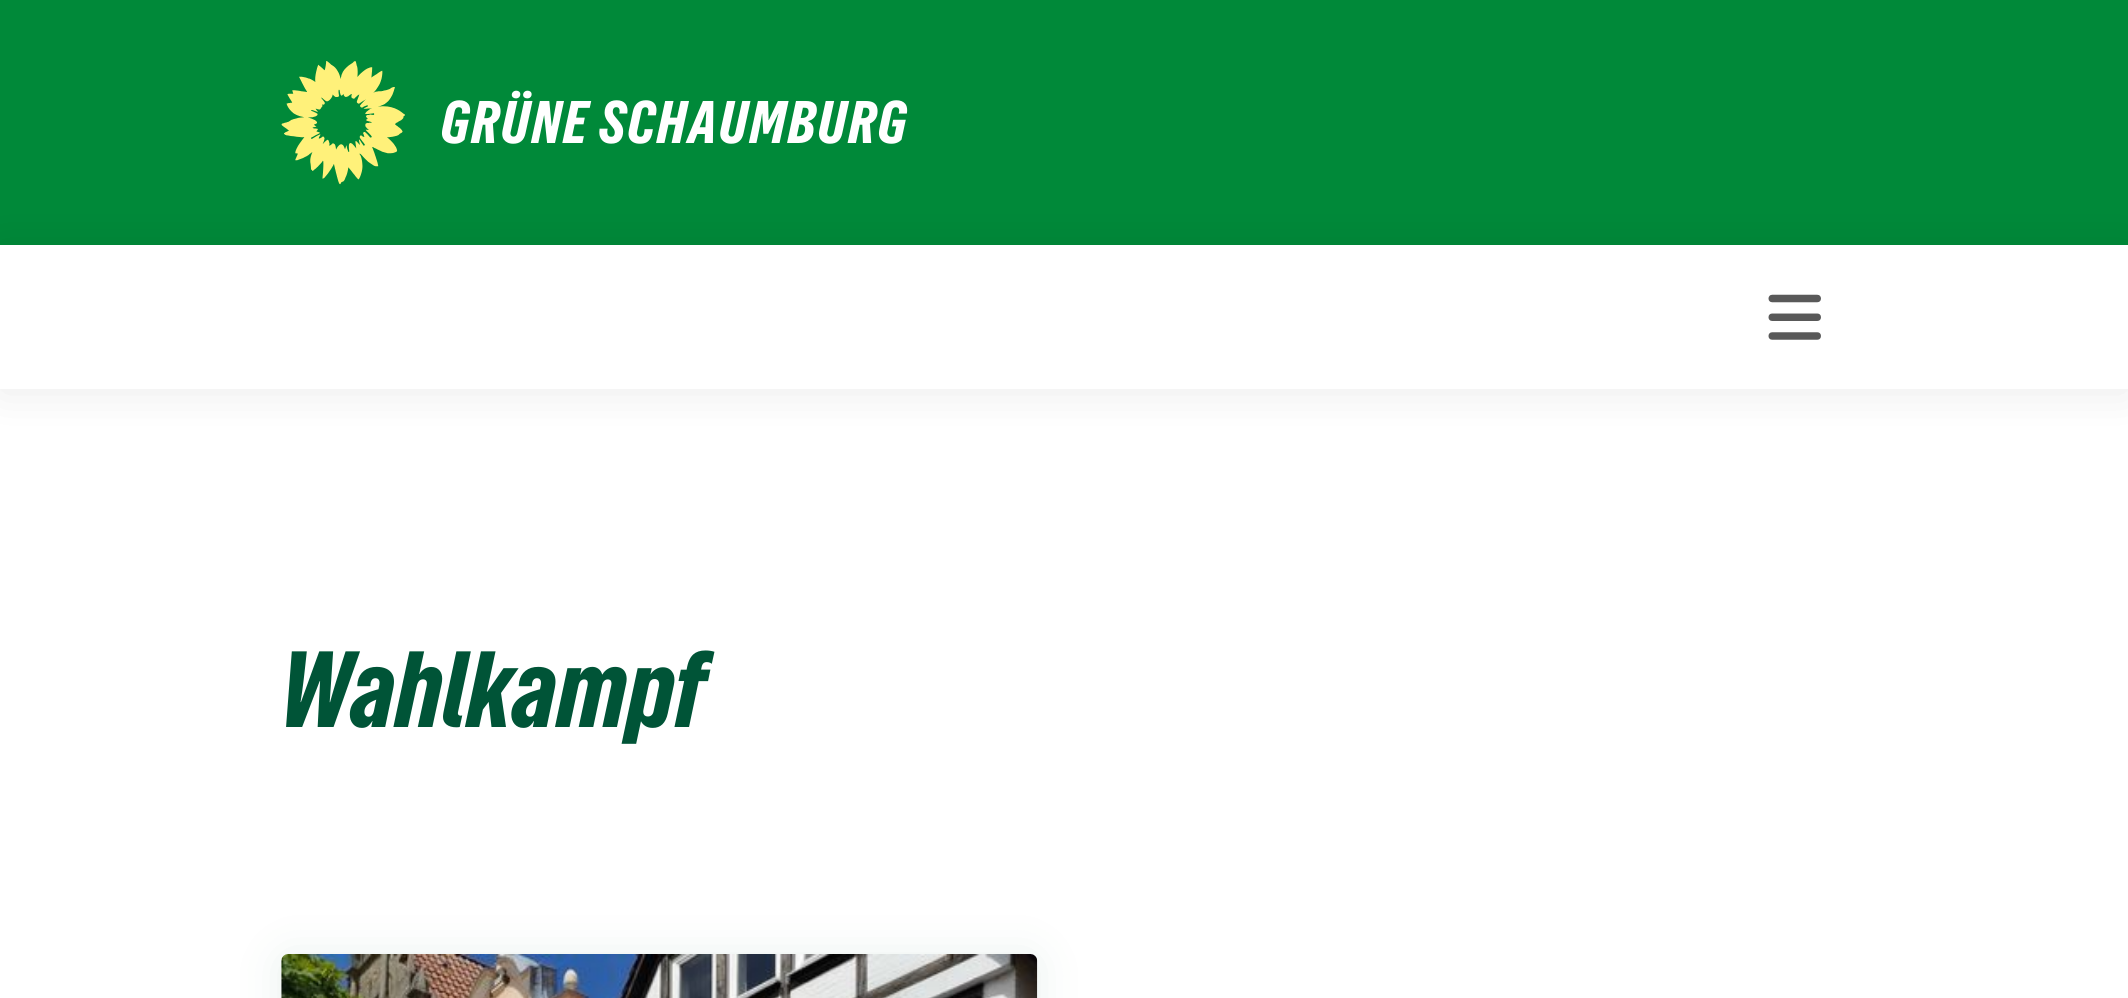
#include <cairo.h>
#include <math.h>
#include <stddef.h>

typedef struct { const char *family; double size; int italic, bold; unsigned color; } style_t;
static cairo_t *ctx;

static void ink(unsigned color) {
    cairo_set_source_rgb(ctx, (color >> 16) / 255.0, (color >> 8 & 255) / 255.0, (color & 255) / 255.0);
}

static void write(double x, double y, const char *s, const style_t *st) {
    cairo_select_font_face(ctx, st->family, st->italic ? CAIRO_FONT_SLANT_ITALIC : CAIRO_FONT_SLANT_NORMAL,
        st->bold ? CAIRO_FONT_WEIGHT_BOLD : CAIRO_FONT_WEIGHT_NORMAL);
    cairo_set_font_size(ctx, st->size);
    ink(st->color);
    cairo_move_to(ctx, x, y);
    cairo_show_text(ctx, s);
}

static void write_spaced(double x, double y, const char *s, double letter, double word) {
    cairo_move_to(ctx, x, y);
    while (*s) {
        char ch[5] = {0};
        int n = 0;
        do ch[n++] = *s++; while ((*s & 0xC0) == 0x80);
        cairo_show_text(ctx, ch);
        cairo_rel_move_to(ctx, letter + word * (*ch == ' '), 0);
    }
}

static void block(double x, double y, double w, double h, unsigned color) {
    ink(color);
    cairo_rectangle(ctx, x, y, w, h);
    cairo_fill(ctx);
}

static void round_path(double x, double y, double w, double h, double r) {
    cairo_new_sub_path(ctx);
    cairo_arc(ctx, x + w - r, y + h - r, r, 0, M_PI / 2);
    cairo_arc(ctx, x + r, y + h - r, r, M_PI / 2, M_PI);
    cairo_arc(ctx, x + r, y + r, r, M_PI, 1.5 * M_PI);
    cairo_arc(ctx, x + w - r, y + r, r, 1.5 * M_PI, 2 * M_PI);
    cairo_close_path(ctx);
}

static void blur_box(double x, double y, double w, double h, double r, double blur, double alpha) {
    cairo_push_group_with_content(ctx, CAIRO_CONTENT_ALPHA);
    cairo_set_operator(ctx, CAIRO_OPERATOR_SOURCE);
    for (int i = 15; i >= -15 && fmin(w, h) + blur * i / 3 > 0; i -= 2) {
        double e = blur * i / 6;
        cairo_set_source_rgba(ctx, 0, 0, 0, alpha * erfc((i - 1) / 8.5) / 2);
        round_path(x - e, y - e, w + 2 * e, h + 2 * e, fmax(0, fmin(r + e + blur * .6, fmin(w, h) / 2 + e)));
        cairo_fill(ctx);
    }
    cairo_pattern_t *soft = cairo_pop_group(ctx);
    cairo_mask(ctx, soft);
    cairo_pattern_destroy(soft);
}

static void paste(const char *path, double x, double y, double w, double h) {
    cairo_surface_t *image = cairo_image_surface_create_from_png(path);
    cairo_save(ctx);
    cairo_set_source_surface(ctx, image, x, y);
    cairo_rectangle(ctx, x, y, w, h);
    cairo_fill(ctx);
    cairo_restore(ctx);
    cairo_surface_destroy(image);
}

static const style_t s1 = {"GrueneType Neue", 101.25, 0, 0, 0x005437};

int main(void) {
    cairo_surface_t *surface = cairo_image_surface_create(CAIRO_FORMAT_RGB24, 2128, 998);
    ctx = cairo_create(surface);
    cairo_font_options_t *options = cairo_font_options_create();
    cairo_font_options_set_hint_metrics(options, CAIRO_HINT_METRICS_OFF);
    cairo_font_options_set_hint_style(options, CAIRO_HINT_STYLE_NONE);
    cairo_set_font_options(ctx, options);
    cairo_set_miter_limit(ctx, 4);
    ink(0xffffff);
    cairo_paint(ctx);
    block(0, 0, 2128, 245, 0x008939);
    paste("pic1.png", 281, 61, 124, 124);
    cairo_select_font_face(ctx, "GrueneType Neue", CAIRO_FONT_SLANT_NORMAL, CAIRO_FONT_WEIGHT_NORMAL);
    cairo_set_font_size(ctx, 56.25);
    ink(0xffffff);
    write_spaced(441, 143, "GRÜNE SCHAUMBURG", 2.25, 0);
    ink(0x000000);
    blur_box(0, 248, 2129, 144, 0, 22.5, 0.08);
    block(0, 245, 2128, 144, 0xffffff);
    paste("pic2.png", 1768, 294, 53, 46);
    write(281, 727, "Wahlkampf", &s1);
    ink(0x005437);
    blur_box(281, 956, 756, 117, 7, 22.5, 0.09);
    ink(0xffffff);
    round_path(281, 954, 756, 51, 7);
    cairo_fill(ctx);
    paste("pic3.png", 281, 954, 757, 44);
    cairo_surface_write_to_png(surface, "screenshot.png");
    cairo_font_options_destroy(options);
    cairo_destroy(ctx);
    cairo_surface_destroy(surface);
    return 0;
}
